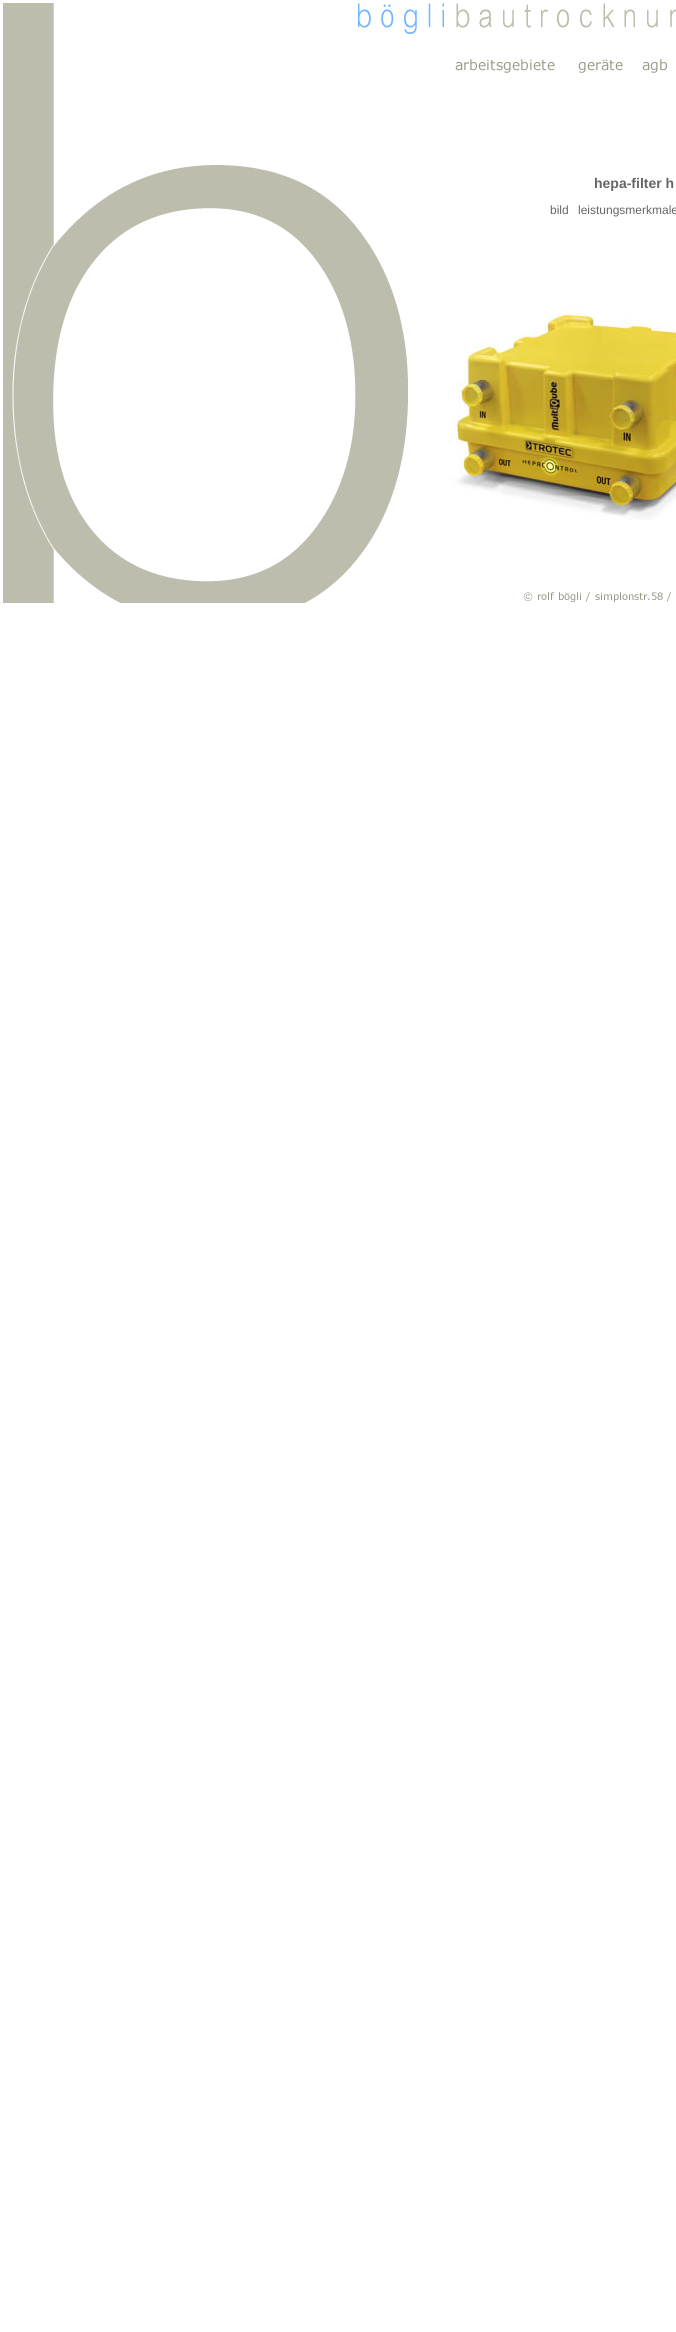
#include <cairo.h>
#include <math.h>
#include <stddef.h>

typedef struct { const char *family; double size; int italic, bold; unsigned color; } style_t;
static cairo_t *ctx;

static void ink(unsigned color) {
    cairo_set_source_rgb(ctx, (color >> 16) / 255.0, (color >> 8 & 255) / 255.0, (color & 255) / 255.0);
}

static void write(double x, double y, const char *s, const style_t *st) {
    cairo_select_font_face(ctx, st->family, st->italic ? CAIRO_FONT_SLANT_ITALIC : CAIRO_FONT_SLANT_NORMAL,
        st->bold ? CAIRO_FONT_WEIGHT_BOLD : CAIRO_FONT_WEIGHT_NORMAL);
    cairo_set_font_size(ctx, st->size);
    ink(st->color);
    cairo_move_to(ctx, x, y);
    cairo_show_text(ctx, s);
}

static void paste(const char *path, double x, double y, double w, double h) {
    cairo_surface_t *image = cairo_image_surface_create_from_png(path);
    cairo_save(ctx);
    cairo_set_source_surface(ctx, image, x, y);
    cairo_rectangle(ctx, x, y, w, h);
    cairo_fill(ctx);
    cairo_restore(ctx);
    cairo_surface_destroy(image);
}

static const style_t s1 = {"Liberation Sans", 14, 0, 1, 0x666666};
static const style_t s2 = {"Liberation Sans", 12, 0, 0, 0x666666};

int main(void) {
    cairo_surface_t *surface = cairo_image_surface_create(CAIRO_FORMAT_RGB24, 676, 2332);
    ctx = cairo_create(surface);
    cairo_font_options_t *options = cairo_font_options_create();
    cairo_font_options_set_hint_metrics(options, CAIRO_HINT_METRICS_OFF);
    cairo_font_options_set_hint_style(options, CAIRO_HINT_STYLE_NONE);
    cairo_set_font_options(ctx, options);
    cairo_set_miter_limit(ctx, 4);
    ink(0xffffff);
    cairo_paint(ctx);
    paste("pic1.png", 3, 3, 673, 600);
    paste("pic2.png", 360, 9, 57, 22);
    write(594, 188, "hepa-filter h", &s1);
    write(550, 214, "bild", &s2);
    write(578, 214, "leistungsmerkmale", &s2);
    paste("pic3.png", 451, 308, 225, 212);
    cairo_surface_write_to_png(surface, "screenshot.png");
    cairo_font_options_destroy(options);
    cairo_destroy(ctx);
    cairo_surface_destroy(surface);
    return 0;
}
